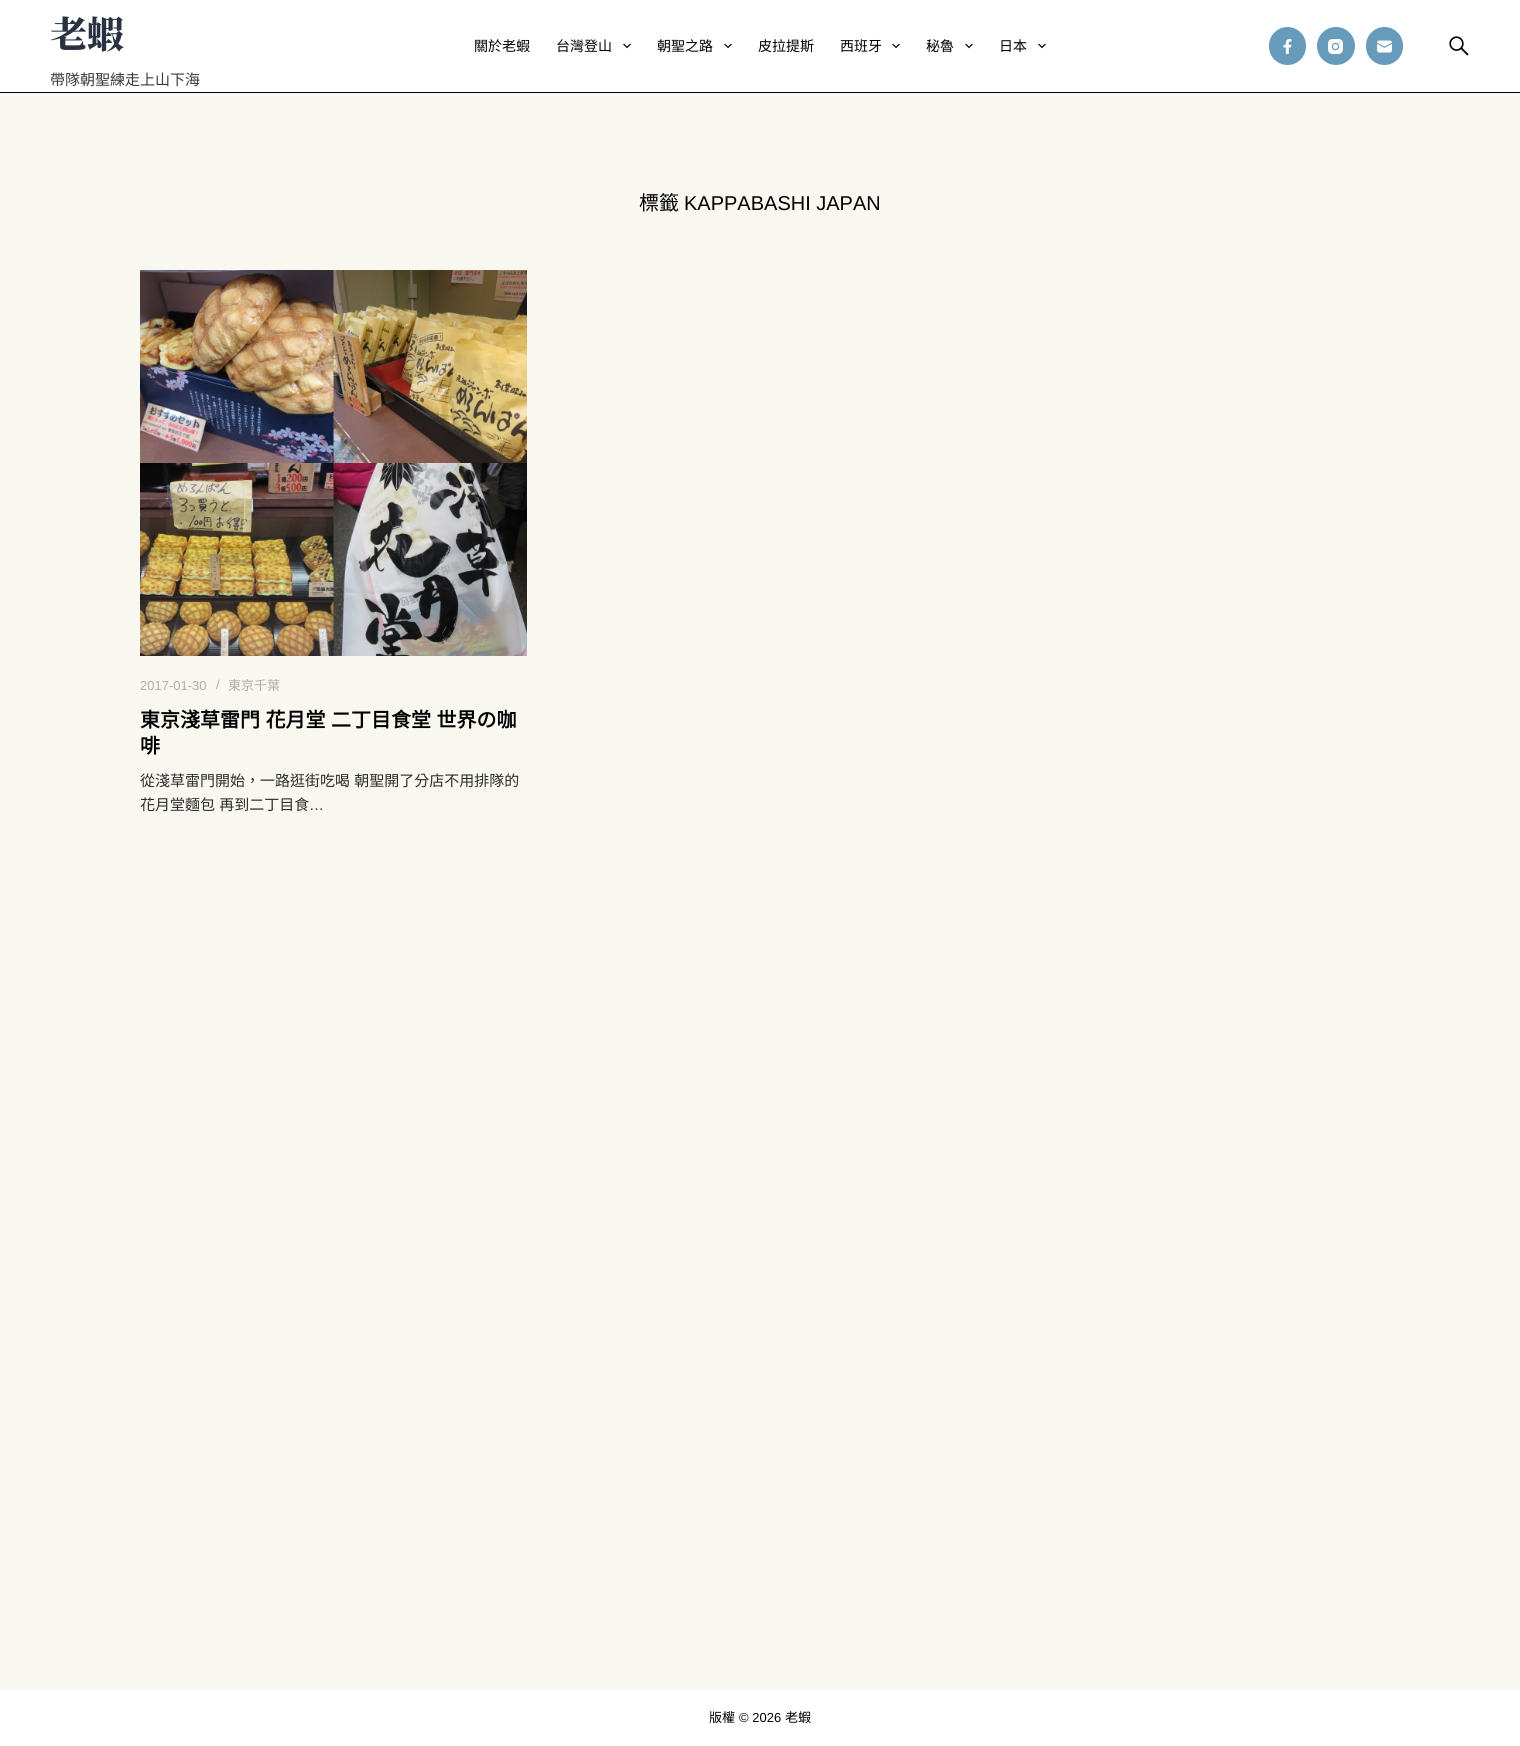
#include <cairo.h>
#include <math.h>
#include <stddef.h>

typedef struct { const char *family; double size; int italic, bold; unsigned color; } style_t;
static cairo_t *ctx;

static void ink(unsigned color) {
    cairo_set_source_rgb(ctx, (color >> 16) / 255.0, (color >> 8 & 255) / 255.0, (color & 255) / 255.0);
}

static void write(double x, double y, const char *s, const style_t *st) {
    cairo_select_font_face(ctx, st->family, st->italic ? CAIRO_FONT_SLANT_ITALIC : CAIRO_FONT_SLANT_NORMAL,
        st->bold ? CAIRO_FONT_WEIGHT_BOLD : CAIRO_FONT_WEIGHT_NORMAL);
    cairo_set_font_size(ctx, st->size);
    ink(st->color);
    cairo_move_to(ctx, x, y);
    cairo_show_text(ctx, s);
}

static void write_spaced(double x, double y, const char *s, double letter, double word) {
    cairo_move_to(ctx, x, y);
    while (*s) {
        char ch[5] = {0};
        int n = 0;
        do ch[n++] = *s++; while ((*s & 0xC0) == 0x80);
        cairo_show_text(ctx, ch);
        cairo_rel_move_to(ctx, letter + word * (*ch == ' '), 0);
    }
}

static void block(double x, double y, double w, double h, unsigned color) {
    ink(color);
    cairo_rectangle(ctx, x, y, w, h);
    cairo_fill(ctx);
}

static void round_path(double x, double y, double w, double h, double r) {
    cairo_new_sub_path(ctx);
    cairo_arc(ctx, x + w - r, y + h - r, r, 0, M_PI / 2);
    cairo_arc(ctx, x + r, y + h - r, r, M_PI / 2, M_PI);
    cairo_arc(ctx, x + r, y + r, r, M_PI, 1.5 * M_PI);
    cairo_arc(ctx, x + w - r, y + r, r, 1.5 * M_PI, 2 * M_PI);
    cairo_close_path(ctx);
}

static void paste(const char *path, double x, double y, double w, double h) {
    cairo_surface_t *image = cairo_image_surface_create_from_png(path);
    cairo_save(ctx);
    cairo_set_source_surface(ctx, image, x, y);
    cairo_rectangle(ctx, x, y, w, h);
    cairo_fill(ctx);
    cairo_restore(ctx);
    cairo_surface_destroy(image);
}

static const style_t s1 = {"Noto Serif TC Black", 37, 0, 0, 0x293241};
static const style_t s2 = {"Noto Sans CJK TC", 15, 0, 0, 0x3d3939};
static const style_t s3 = {"Noto Sans CJK TC", 14, 0, 0, 0x000000};
static const style_t s4 = {"Noto Sans CJK TC", 20, 0, 0, 0x000000};
static const style_t s5 = {"Liberation Sans", 20, 0, 0, 0x000000};
static const style_t s6 = {"Liberation Sans", 13, 0, 0, 0xadadad};
static const style_t s7 = {"Noto Sans CJK TC", 13, 0, 0, 0xadadad};
static const style_t s8 = {"Noto Sans CJK TC", 20, 0, 1, 0x000000};
static const style_t s9 = {"Liberation Sans", 15, 0, 0, 0x2c2c2c};
static const style_t s10 = {"Noto Sans CJK TC", 13, 0, 0, 0x000000};
static const style_t s11 = {"Liberation Sans", 13, 0, 0, 0x000000};

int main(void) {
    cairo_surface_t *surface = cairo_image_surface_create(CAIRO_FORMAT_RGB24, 1520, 1746);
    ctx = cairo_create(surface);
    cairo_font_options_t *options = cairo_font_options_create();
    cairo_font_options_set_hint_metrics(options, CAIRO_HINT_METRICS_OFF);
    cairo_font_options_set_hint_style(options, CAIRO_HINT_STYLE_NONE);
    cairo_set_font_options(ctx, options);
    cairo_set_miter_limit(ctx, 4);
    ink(0xf8f7f0);
    cairo_paint(ctx);
    block(0, 0, 1520, 92, 0xffffff);
    block(0, 92, 1520, 1, 0x000000);
    write(50, 48, "老蝦", &s1);
    write(50, 85, "帶隊朝聖練走上山下海", &s2);
    write(474, 51, "關於老蝦", &s3);
    write(556, 51, "台灣登山", &s3);
    paste("pic1.png", 623, 43, 8, 6);
    write(657, 51, "朝聖之路", &s3);
    paste("pic1.png", 724, 43, 8, 6);
    write(758, 51, "皮拉提斯", &s3);
    write(840, 51, "西班牙", &s3);
    paste("pic1.png", 892, 43, 8, 6);
    write(926, 51, "秘魯", &s3);
    paste("pic1.png", 965, 43, 8, 6);
    write(999, 51, "日本", &s3);
    paste("pic1.png", 1038, 43, 8, 6);
    ink(0x669bbc);
    round_path(1269, 27, 37, 38, 18.5);
    cairo_fill(ctx);
    paste("pic2.png", 1283, 39, 9, 15);
    cairo_arc(ctx, 1336, 46, 19, 0, 2 * M_PI);
    cairo_fill(ctx);
    paste("pic3.png", 1328, 39, 15, 15);
    round_path(1366, 27, 37, 38, 18.5);
    cairo_fill(ctx);
    paste("pic4.png", 1377, 40, 15, 13);
    paste("pic5.png", 1449, 36, 20, 20);
    write(639, 210, "標籤", &s4);
    write(684, 210, "KAPPABASHI JAPAN", &s5);
    paste("pic6.png", 140, 270, 387, 386);
    write(140, 690, "2017-01-30", &s6);
    write(216, 689, "/", &s6);
    write(228, 690, "東京千葉", &s7);
    cairo_select_font_face(ctx, "Noto Sans CJK TC", CAIRO_FONT_SLANT_NORMAL, CAIRO_FONT_WEIGHT_BOLD);
    cairo_set_font_size(ctx, 20);
    ink(0x000000);
    write_spaced(140, 727, "東京淺草雷門 花月堂 二丁目食堂 世界の咖", 0, 1);
    write(140, 753, "啡", &s8);
    cairo_select_font_face(ctx, "Noto Sans CJK TC", CAIRO_FONT_SLANT_NORMAL, CAIRO_FONT_WEIGHT_NORMAL);
    cairo_set_font_size(ctx, 15);
    ink(0x2c2c2c);
    write_spaced(140, 786, "從淺草雷門開始，一路逛街吃喝 朝聖開了分店不用排隊的", 0, 1);
    write_spaced(140, 810, "花月堂麵包 再到二丁目食", 0, 1);
    write(309, 810, "…", &s9);
    block(0, 1690, 1520, 56, 0xffffff);
    write(709, 1722, "版權", &s10);
    write(739, 1722, "© 2026", &s11);
    write(785, 1722, "老蝦", &s10);
    cairo_surface_write_to_png(surface, "screenshot.png");
    cairo_font_options_destroy(options);
    cairo_destroy(ctx);
    cairo_surface_destroy(surface);
    return 0;
}
